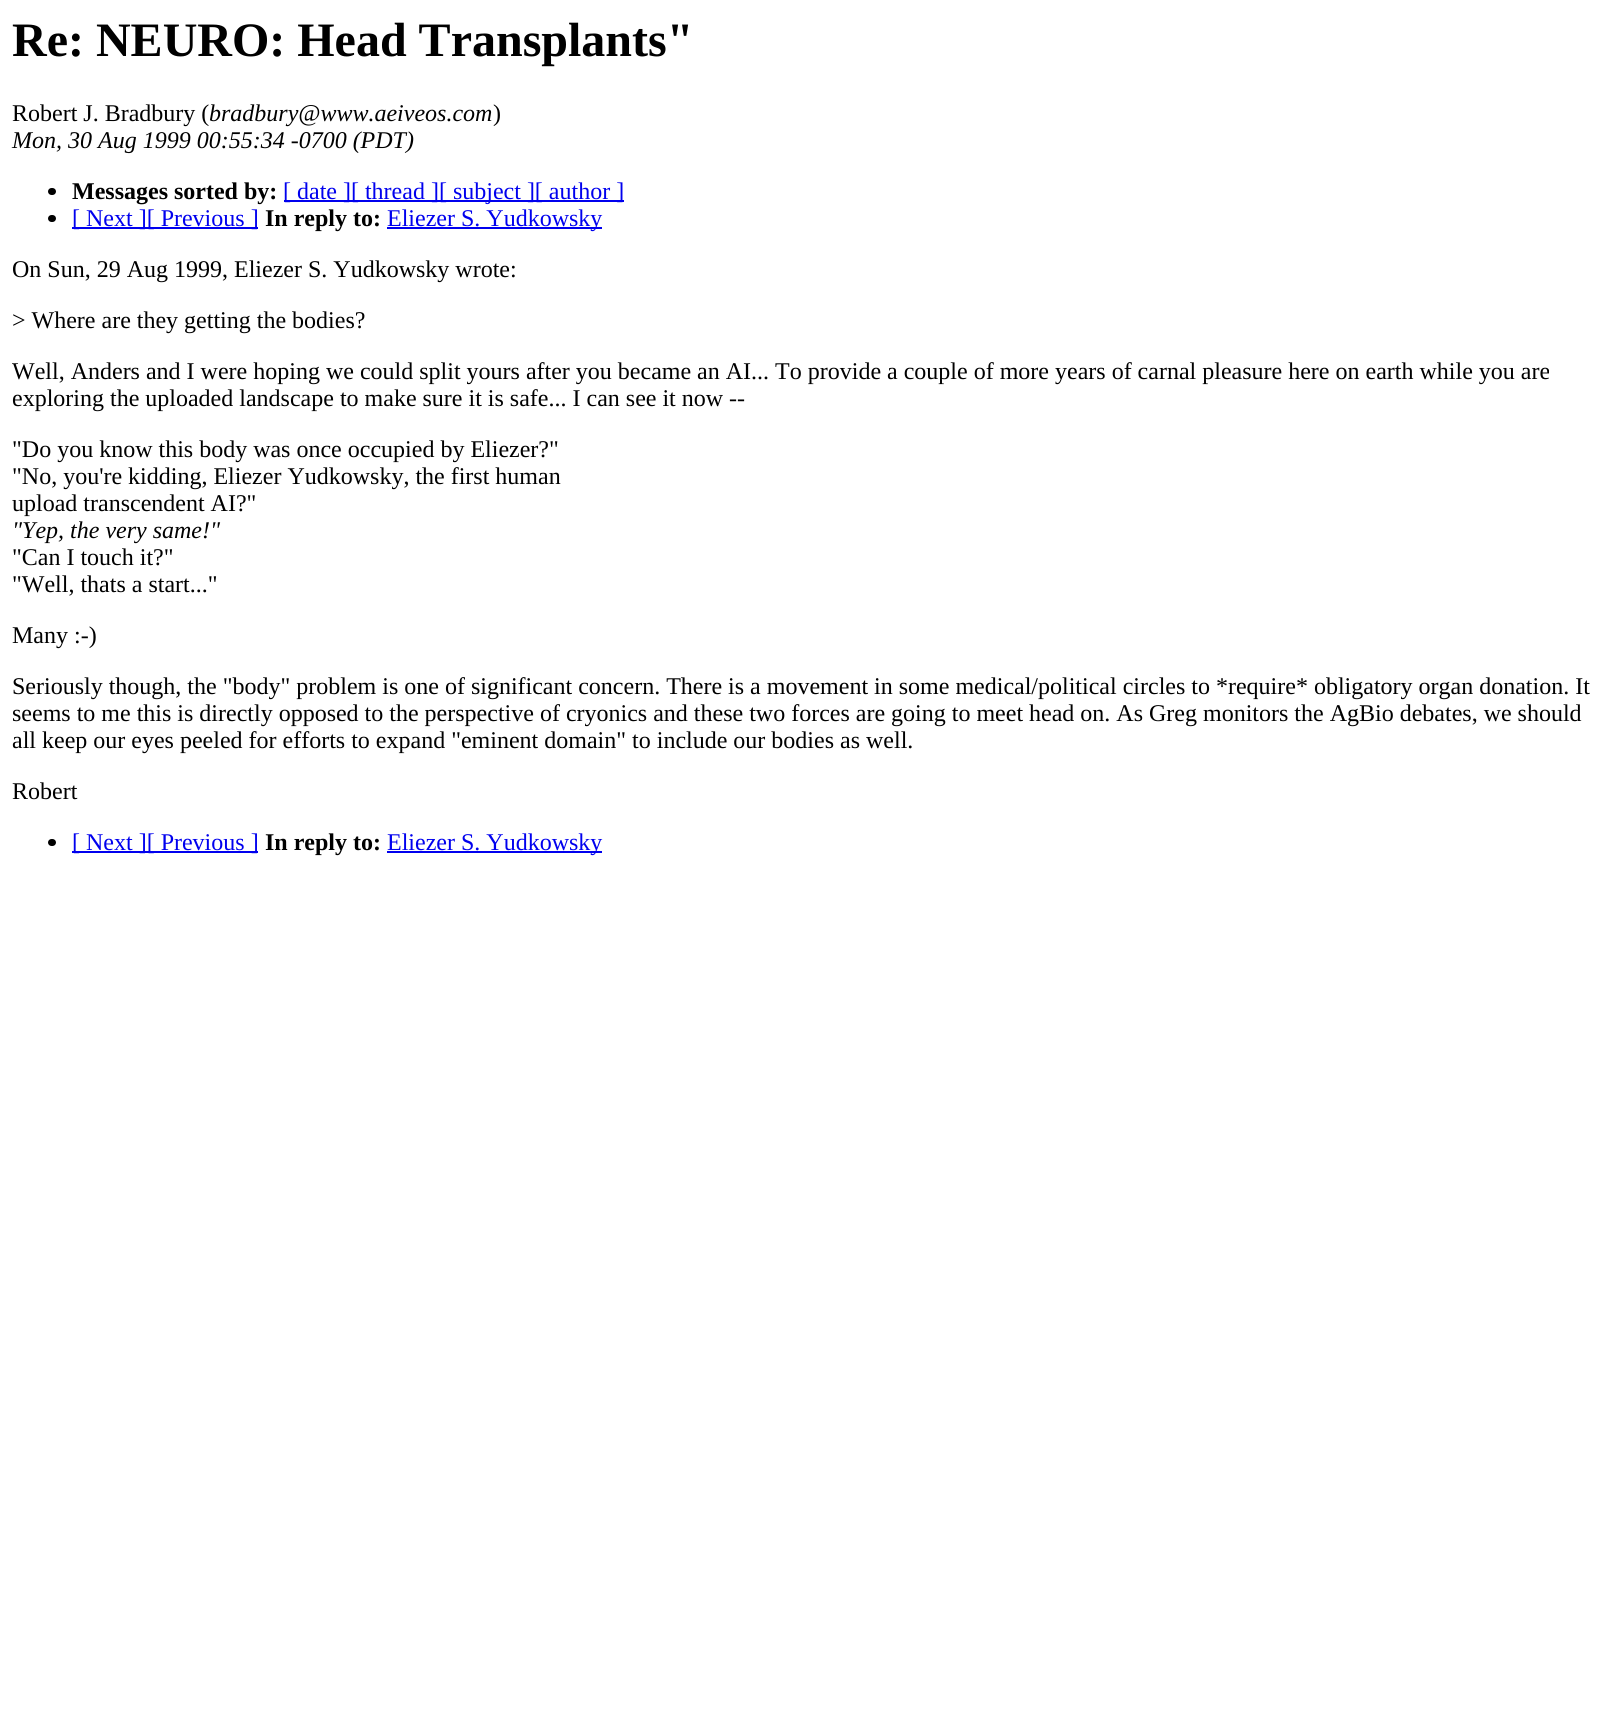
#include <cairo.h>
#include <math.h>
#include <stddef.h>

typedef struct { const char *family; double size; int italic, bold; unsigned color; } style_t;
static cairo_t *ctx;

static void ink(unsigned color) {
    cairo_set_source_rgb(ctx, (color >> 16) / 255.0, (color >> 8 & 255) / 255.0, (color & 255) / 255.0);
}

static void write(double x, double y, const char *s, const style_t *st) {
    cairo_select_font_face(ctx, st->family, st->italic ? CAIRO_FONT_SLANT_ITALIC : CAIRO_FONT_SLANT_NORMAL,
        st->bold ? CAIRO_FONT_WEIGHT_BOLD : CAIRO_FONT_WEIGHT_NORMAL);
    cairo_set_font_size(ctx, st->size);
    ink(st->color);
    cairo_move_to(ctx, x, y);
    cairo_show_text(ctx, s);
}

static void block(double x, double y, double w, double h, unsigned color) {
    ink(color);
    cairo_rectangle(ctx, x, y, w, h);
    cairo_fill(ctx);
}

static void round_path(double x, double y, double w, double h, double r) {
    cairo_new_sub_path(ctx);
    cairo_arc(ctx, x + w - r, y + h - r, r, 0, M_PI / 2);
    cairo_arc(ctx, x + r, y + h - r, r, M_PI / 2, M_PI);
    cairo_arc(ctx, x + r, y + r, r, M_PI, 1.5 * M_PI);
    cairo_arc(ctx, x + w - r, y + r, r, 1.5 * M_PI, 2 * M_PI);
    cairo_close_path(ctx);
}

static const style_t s1 = {"Liberation Serif", 48, 0, 1, 0x000000};
static const style_t s2 = {"Liberation Serif", 24, 0, 0, 0x000000};
static const style_t s3 = {"Liberation Serif", 24, 1, 0, 0x000000};
static const style_t s4 = {"Liberation Serif", 24, 0, 1, 0x000000};
static const style_t s5 = {"Liberation Serif", 24, 0, 0, 0x0000ee};

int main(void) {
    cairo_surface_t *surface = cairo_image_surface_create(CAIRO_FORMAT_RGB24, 1603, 1709);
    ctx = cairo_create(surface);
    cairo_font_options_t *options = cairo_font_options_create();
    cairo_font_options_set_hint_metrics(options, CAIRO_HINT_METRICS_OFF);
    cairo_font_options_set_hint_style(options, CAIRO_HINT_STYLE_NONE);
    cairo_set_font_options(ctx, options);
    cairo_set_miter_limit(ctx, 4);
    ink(0xffffff);
    cairo_paint(ctx);
    write(12, 56, "Re: NEURO: Head Transplants\"", &s1);
    write(12, 121, "Robert J. Bradbury (", &s2);
    write(209, 121, "bradbury@www.aeiveos.com", &s3);
    write(493, 121, ")", &s2);
    write(12, 148, "Mon, 30 Aug 1999 00:55:34 -0700 (PDT)", &s3);
    round_path(48, 188, 8, 7, 3.5);
    cairo_fill(ctx);
    write(72, 199, "Messages sorted by:", &s4);
    block(284, 200, 340, 2, 0x0000ee);
    write(283, 199, "[ date ][ thread ][ subject ][ author ]", &s5);
    ink(0x000000);
    round_path(48, 215, 8, 7, 3.5);
    cairo_fill(ctx);
    block(72, 227, 186, 2, 0x0000ee);
    write(72, 226, "[ Next ][ Previous ]", &s5);
    write(265, 226, "In reply to:", &s4);
    block(387, 227, 215, 2, 0x0000ee);
    write(387, 226, "Eliezer S. Yudkowsky", &s5);
    write(12, 277, "On Sun, 29 Aug 1999, Eliezer S. Yudkowsky wrote:", &s2);
    write(12, 328, "> Where are they getting the bodies?", &s2);
    write(12, 379, "Well, Anders and I were hoping we could split yours after you became an AI... To provide a couple of more years of carnal pleasure here on earth while you are", &s2);
    write(12, 406, "exploring the uploaded landscape to make sure it is safe... I can see it now --", &s2);
    write(12, 457, "\"Do you know this body was once occupied by Eliezer?\"", &s2);
    write(12, 484, "\"No, you're kidding, Eliezer Yudkowsky, the first human", &s2);
    write(12, 511, "upload transcendent AI?\"", &s2);
    write(12, 538, "\"Yep, the very same!\"", &s3);
    write(12, 565, "\"Can I touch it?\"", &s2);
    write(12, 592, "\"Well, thats a start...\"", &s2);
    write(12, 643, "Many :-)", &s2);
    write(12, 694, "Seriously though, the \"body\" problem is one of significant concern. There is a movement in some medical/political circles to *require* obligatory organ donation. It", &s2);
    write(12, 721, "seems to me this is directly opposed to the perspective of cryonics and these two forces are going to meet head on. As Greg monitors the AgBio debates, we should", &s2);
    write(12, 748, "all keep our eyes peeled for efforts to expand \"eminent domain\" to include our bodies as well.", &s2);
    write(12, 799, "Robert", &s2);
    round_path(48, 839, 8, 7, 3.5);
    cairo_fill(ctx);
    block(72, 851, 186, 2, 0x0000ee);
    write(72, 850, "[ Next ][ Previous ]", &s5);
    write(265, 850, "In reply to:", &s4);
    block(387, 851, 215, 2, 0x0000ee);
    write(387, 850, "Eliezer S. Yudkowsky", &s5);
    cairo_surface_write_to_png(surface, "screenshot.png");
    cairo_font_options_destroy(options);
    cairo_destroy(ctx);
    cairo_surface_destroy(surface);
    return 0;
}
